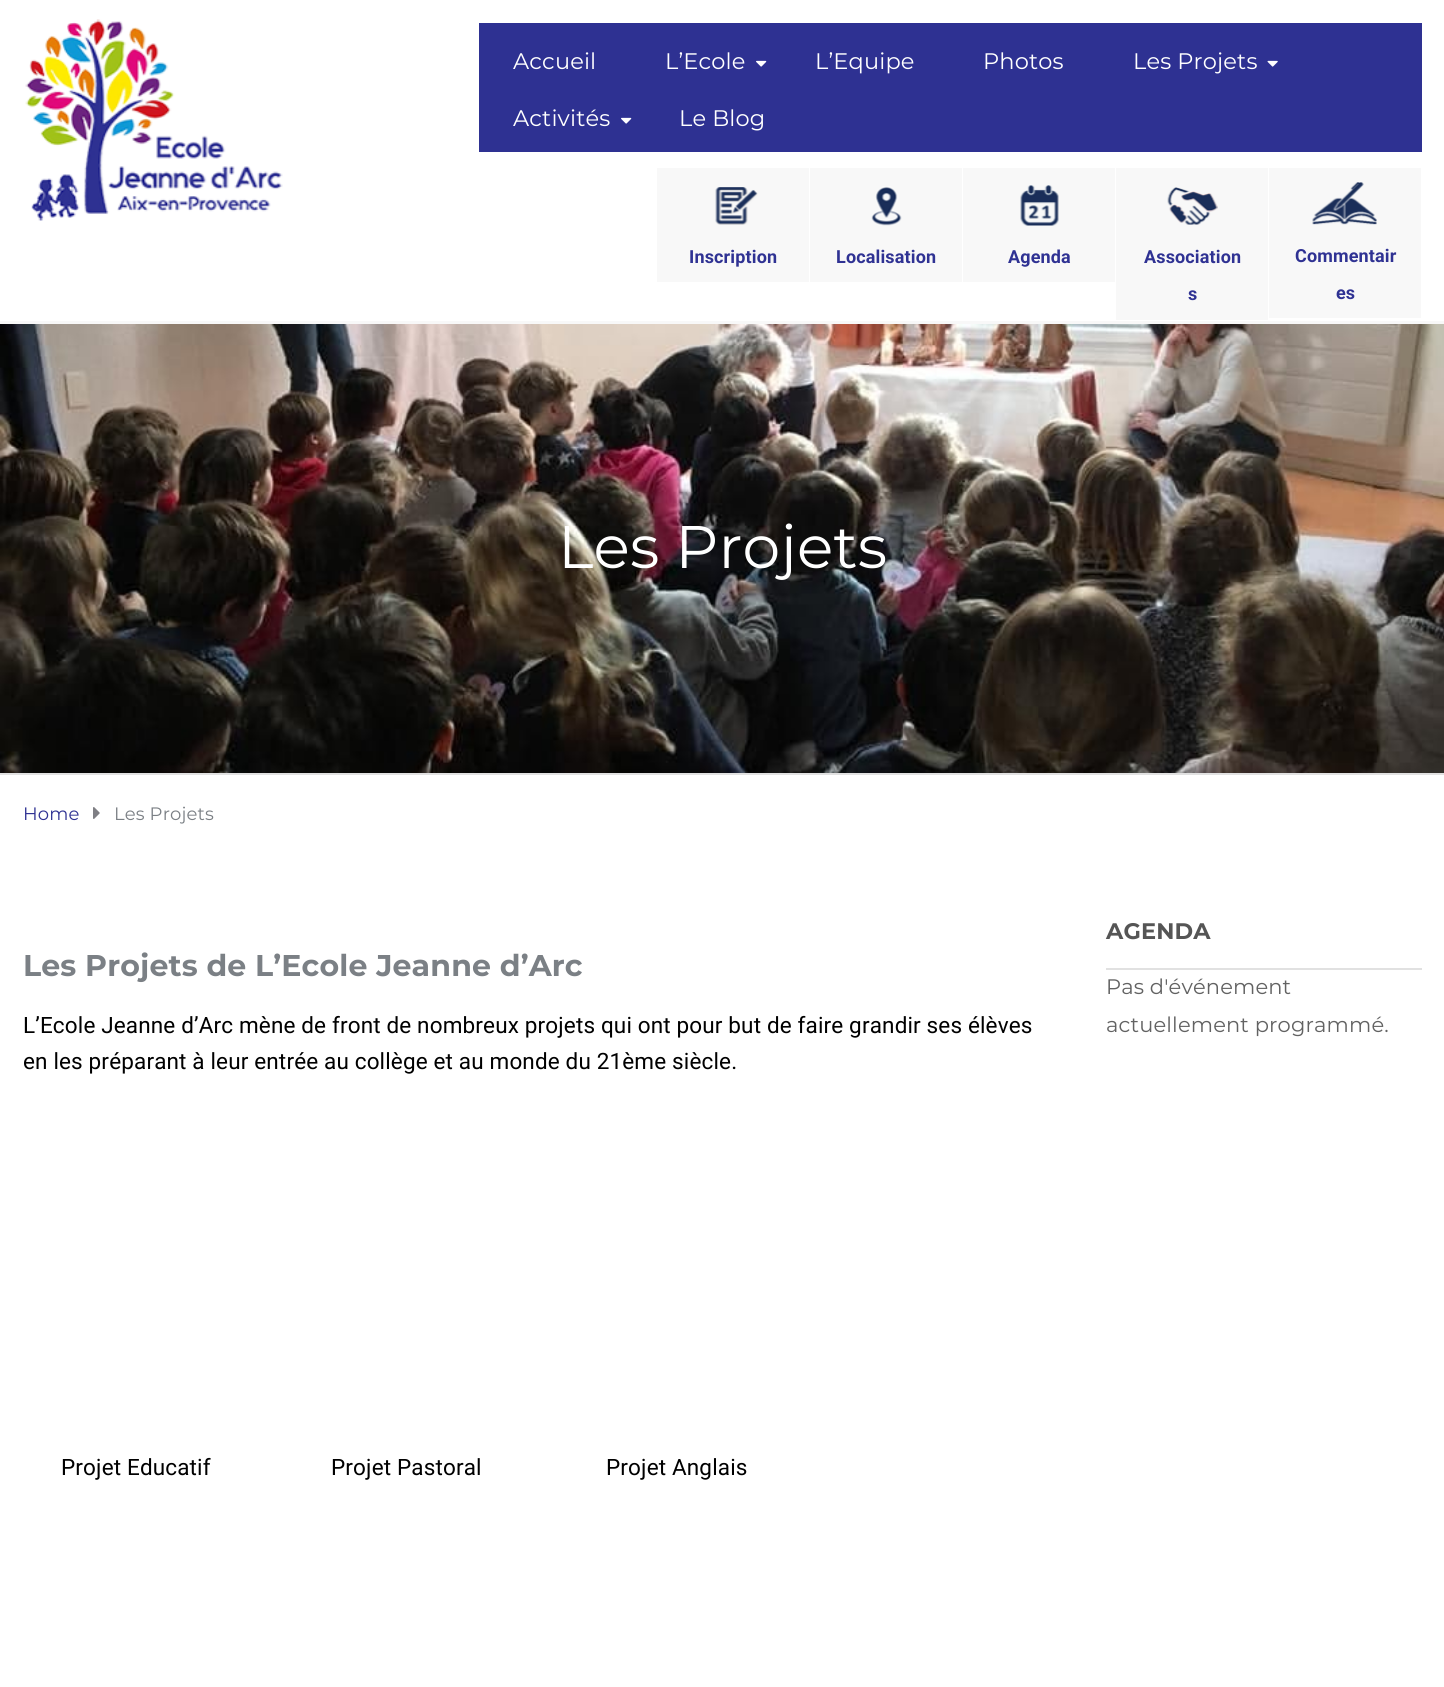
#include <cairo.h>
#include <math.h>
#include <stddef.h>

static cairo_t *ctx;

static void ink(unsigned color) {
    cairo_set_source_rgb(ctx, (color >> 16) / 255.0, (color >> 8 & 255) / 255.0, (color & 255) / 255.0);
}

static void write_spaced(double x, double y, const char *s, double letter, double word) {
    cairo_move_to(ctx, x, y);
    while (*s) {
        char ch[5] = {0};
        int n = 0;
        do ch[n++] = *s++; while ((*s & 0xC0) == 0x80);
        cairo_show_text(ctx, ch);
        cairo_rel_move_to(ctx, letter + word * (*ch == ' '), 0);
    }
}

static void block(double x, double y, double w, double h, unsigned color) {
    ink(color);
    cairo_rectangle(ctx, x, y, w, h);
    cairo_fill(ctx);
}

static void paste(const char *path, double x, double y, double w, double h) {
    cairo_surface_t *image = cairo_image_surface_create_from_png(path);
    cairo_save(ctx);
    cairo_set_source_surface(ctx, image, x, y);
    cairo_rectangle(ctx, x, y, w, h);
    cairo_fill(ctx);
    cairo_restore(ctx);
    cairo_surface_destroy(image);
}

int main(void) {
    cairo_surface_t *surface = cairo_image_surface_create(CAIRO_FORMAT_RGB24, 1444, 1687);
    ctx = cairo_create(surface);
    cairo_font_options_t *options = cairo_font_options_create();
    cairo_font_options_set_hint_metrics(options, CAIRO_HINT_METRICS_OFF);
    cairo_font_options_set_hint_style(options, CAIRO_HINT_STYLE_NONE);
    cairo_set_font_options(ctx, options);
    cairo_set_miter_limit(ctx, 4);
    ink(0xffffff);
    cairo_paint(ctx);
    block(0, 321, 1444, 3, 0xf8f8f8);
    paste("pic1.png", 25, 19, 258, 202);
    block(479, 23, 943, 129, 0x2e3192);
    cairo_select_font_face(ctx, "Montserrat", CAIRO_FONT_SLANT_NORMAL, CAIRO_FONT_WEIGHT_NORMAL);
    cairo_set_font_size(ctx, 22.5);
    ink(0xffffff);
    write_spaced(513, 69, "Accueil", 0.15, 0);
    write_spaced(665, 69, "L’Ecole", 0.15, 0);
    paste("pic2.png", 756, 60, 11, 7);
    write_spaced(815, 69, "L’Equipe", 0.15, 0);
    write_spaced(983, 69, "Photos", 0.15, 0);
    write_spaced(1133, 69, "Les Projets", 0.15, 0);
    paste("pic3.png", 1267, 60, 11, 7);
    write_spaced(513, 126, "Activités", 0.15, 0);
    paste("pic2.png", 621, 117, 11, 7);
    write_spaced(679, 126, "Le Blog", 0.15, 0);
    block(657, 168, 152, 114, 0xf8f8f8);
    paste("pic4.png", 715, 187, 43, 38);
    cairo_select_font_face(ctx, "Roboto", CAIRO_FONT_SLANT_NORMAL, CAIRO_FONT_WEIGHT_BOLD);
    cairo_set_font_size(ctx, 18);
    ink(0x2f3293);
    write_spaced(689, 263, "Inscription", 0.15, 0);
    block(810, 168, 152, 114, 0xf8f8f8);
    paste("pic5.png", 871, 186, 31, 40);
    ink(0x2f3293);
    write_spaced(836, 263, "Localisation", 0.15, 0);
    block(963, 168, 152, 114, 0xf8f8f8);
    paste("pic6.png", 1020, 185, 39, 41);
    ink(0x2f3293);
    write_spaced(1008, 263, "Agenda", 0.15, 0);
    block(1116, 168, 152, 152, 0xf8f8f8);
    paste("pic7.png", 1167, 187, 51, 38);
    ink(0x2f3293);
    write_spaced(1144, 263, "Association", 0.15, 0);
    write_spaced(1188, 300, "s", 0.15, 0);
    block(1269, 168, 152, 150, 0xf8f8f8);
    paste("pic8.png", 1312, 182, 65, 43);
    ink(0x2f3293);
    write_spaced(1295, 262, "Commentair", 0.15, 0);
    write_spaced(1336, 299, "es", 0.15, 0);
    paste("pic9.png", 0, 324, 1444, 449);
    block(0, 773, 1444, 2, 0xe1e1e1);
    cairo_select_font_face(ctx, "Montserrat", CAIRO_FONT_SLANT_NORMAL, CAIRO_FONT_WEIGHT_NORMAL);
    cairo_set_font_size(ctx, 60);
    ink(0xffffff);
    write_spaced(558, 568, "Les Projets", 0.15, 0);
    cairo_set_font_size(ctx, 18);
    ink(0x2f3293);
    write_spaced(23, 820, "Home", 0.15, 0);
    paste("pic10.png", 93, 807, 7, 12);
    ink(0x7b8085);
    write_spaced(114, 820, "Les Projets", 0.15, 0);
    cairo_select_font_face(ctx, "Montserrat", CAIRO_FONT_SLANT_NORMAL, CAIRO_FONT_WEIGHT_BOLD);
    cairo_set_font_size(ctx, 30);
    write_spaced(23, 976, "Les Projets de L’Ecole Jeanne d’Arc", 0.15, 0);
    cairo_select_font_face(ctx, "Roboto", CAIRO_FONT_SLANT_NORMAL, CAIRO_FONT_WEIGHT_NORMAL);
    cairo_set_font_size(ctx, 22.5);
    ink(0x000000);
    write_spaced(23, 1033, "L’Ecole Jeanne d’Arc mène de front de nombreux projets qui ont pour but de faire grandir ses élèves", 0.15, 0);
    write_spaced(23, 1069, "en les préparant à leur entrée au collège et au monde du 21ème siècle.", 0.15, 0);
    write_spaced(61, 1475, "Projet Educatif", 0.15, 0);
    write_spaced(331, 1475, "Projet Pastoral", 0.15, 0);
    write_spaced(606, 1475, "Projet Anglais", 0.15, 0);
    block(1106, 968, 316, 2, 0xe1e1e1);
    cairo_select_font_face(ctx, "Montserrat", CAIRO_FONT_SLANT_NORMAL, CAIRO_FONT_WEIGHT_BOLD);
    ink(0x555555);
    write_spaced(1106, 939, "AGENDA", 0.15, 0);
    cairo_select_font_face(ctx, "Montserrat", CAIRO_FONT_SLANT_NORMAL, CAIRO_FONT_WEIGHT_NORMAL);
    cairo_set_font_size(ctx, 21);
    ink(0x626262);
    write_spaced(1106, 994, "Pas d'événement", 0.15, 0);
    write_spaced(1106, 1032, "actuellement programmé.", 0.15, 0);
    cairo_surface_write_to_png(surface, "screenshot.png");
    cairo_font_options_destroy(options);
    cairo_destroy(ctx);
    cairo_surface_destroy(surface);
    return 0;
}
